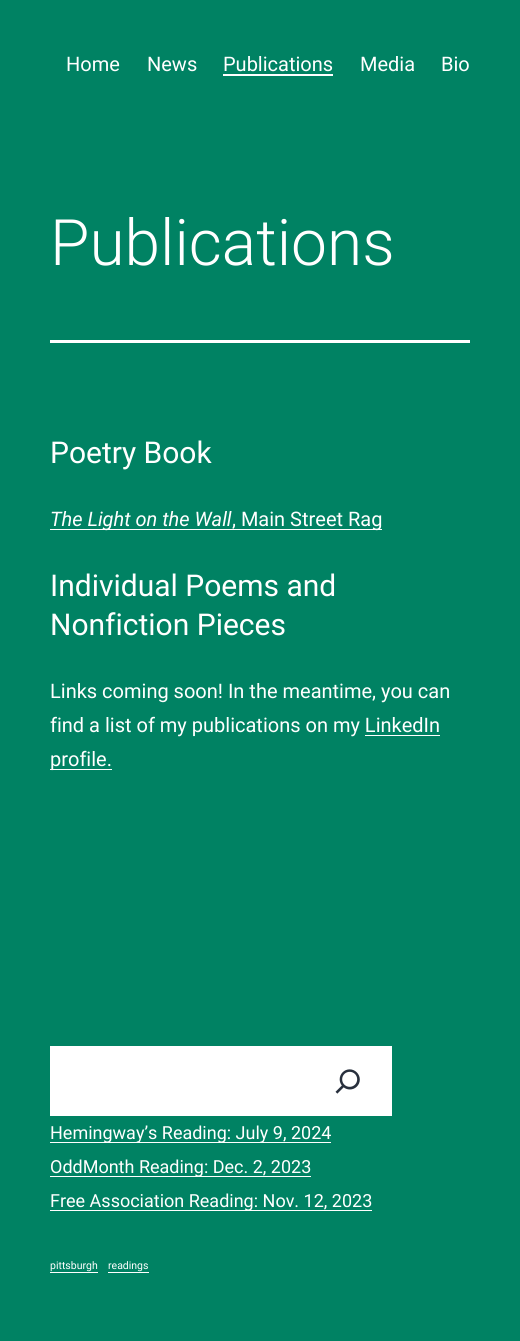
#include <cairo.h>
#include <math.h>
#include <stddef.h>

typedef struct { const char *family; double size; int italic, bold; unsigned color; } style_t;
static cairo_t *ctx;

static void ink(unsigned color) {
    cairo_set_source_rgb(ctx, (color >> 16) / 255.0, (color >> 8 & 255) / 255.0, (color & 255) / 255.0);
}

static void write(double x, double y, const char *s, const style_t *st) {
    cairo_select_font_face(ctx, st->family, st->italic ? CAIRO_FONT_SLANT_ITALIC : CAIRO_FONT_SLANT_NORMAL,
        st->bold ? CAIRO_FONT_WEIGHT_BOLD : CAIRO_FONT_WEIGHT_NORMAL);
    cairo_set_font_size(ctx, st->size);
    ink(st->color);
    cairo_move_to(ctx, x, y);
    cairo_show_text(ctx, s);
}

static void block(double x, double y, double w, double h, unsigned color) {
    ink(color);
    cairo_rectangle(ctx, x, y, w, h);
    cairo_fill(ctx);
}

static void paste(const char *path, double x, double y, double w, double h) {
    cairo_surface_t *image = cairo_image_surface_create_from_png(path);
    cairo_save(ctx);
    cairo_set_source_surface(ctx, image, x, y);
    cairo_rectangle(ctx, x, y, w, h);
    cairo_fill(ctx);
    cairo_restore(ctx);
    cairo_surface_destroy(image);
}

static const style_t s1 = {"Roboto", 20, 0, 0, 0xffffff};
static const style_t s2 = {"Roboto Light", 64, 0, 0, 0xffffff};
static const style_t s3 = {"Roboto", 30, 0, 0, 0xffffff};
static const style_t s4 = {"Roboto", 20, 1, 0, 0xffffff};
static const style_t s5 = {"Roboto", 18, 0, 0, 0xffffff};
static const style_t s6 = {"Roboto", 10.5, 0, 0, 0xffffff};

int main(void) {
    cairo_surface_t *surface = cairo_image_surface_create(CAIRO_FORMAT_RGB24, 520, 1341);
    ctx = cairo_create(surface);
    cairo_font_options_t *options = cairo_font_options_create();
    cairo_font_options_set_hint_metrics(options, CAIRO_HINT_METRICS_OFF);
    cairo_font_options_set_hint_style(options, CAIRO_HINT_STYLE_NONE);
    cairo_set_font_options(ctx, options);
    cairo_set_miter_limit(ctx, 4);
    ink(0x008263);
    cairo_paint(ctx);
    write(66, 71, "Home", &s1);
    write(147, 71, "News", &s1);
    write(223, 71, "Publications", &s1);
    block(223, 74, 110, 2, 0xffffff);
    write(360, 71, "Media", &s1);
    write(441, 71, "Bio", &s1);
    block(50, 340, 420, 3, 0xffffff);
    write(50, 265, "Publications", &s2);
    write(50, 463, "Poetry Book", &s3);
    block(50, 529, 332, 1, 0xffffff);
    write(50, 526, "The Light on the Wall", &s4);
    write(232, 526, ", Main Street Rag", &s1);
    write(50, 596, "Individual Poems and", &s3);
    write(50, 635, "Nonfiction Pieces", &s3);
    write(50, 698, "Links coming soon! In the meantime, you can", &s1);
    write(50, 732, "find a list of my publications on my LinkedIn", &s1);
    block(50, 769, 62, 1, 0xffffff);
    write(50, 766, "profile.", &s1);
    block(365, 735, 75, 1, 0xffffff);
    block(50, 1046, 342, 70, 0xffffff);
    paste("pic1.png", 335, 1069, 25, 25);
    block(50, 1142, 281, 1, 0xffffff);
    write(50, 1139, "Hemingway’s Reading: July 9, 2024", &s5);
    block(50, 1176, 261, 1, 0xffffff);
    write(50, 1173, "OddMonth Reading: Dec. 2, 2023", &s5);
    block(50, 1210, 322, 1, 0xffffff);
    write(50, 1207, "Free Association Reading: Nov. 12, 2023", &s5);
    write(50, 1269, "pittsburgh", &s6);
    block(50, 1272, 48, 1, 0xffffff);
    write(108, 1269, "readings", &s6);
    block(108, 1272, 41, 1, 0xffffff);
    cairo_surface_write_to_png(surface, "screenshot.png");
    cairo_font_options_destroy(options);
    cairo_destroy(ctx);
    cairo_surface_destroy(surface);
    return 0;
}
